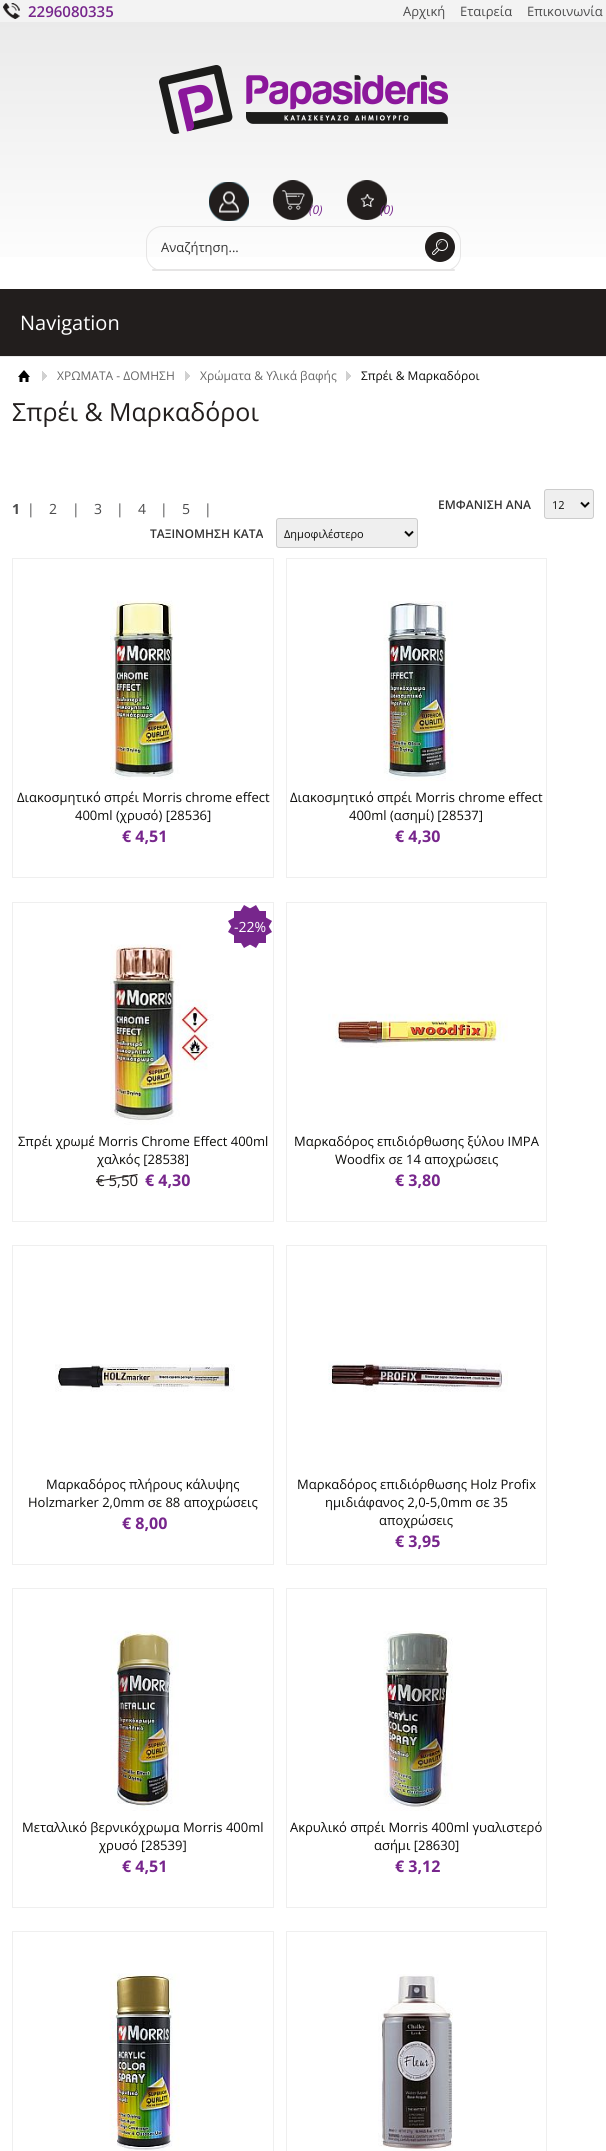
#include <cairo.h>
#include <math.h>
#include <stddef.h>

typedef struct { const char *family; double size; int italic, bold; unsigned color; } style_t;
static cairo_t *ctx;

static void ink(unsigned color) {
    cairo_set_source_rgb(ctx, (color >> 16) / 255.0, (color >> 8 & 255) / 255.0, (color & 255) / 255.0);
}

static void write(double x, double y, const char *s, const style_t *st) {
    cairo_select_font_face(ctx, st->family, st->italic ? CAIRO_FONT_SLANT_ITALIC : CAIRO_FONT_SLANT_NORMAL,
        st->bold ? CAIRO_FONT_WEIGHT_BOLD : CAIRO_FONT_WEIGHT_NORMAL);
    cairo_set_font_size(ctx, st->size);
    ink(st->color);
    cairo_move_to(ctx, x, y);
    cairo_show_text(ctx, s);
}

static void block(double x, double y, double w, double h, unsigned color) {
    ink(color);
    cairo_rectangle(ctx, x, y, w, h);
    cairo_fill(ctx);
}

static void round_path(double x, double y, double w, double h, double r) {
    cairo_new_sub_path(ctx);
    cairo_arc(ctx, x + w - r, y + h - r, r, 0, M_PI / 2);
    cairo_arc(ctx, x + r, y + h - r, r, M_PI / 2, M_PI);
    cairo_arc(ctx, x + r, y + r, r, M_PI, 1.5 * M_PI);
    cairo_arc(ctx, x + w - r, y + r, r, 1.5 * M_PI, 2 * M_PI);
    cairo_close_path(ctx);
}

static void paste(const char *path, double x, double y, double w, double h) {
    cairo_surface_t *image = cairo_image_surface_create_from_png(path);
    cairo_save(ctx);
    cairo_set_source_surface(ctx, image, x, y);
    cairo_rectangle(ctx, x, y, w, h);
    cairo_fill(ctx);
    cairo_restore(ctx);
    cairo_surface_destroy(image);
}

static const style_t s1 = {"Open Sans SemiBold", 15, 0, 0, 0x77268c};
static const style_t s2 = {"Open Sans", 13, 0, 0, 0x4c4c4d};
static const style_t s3 = {"Open Sans", 12, 1, 0, 0x77268c};
static const style_t s4 = {"Open Sans", 13, 0, 0, 0x333333};
static const style_t s5 = {"Open Sans", 20, 0, 0, 0xffffff};
static const style_t s6 = {"Open Sans", 12, 0, 0, 0x666666};
static const style_t s7 = {"Open Sans", 12, 0, 0, 0x0a0a08};
static const style_t s8 = {"Open Sans", 25, 0, 0, 0x221e1d};
static const style_t s9 = {"Open Sans", 14, 0, 1, 0x4c4c4d};
static const style_t s10 = {"Open Sans", 14, 0, 0, 0x4c4c4d};
static const style_t s11 = {"Open Sans SemiBold", 12, 0, 0, 0x333333};
static const style_t s12 = {"Open Sans", 11, 0, 0, 0x0a0a08};
static const style_t s13 = {"Open Sans", 13, 0, 0, 0x0a0a08};
static const style_t s14 = {"Open Sans", 16, 0, 1, 0x77268c};
static const style_t s15 = {"Open Sans", 14, 0, 0, 0xffffff};
static const style_t s16 = {"Open Sans", 15, 0, 0, 0x221e1d};

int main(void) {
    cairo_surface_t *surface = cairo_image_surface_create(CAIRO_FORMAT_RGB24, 606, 2151);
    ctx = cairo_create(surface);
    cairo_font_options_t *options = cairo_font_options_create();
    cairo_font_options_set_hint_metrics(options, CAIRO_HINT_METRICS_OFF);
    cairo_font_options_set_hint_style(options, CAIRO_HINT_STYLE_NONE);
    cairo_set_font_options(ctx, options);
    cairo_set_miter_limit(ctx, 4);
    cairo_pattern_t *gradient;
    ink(0xffffff);
    cairo_paint(ctx);
    block(0, 0, 606, 22, 0xf3f3f3);
    paste("pic1.png", 3, 3, 17, 16);
    write(28, 17, "2296080335", &s1);
    write(403, 16, "Αρχική", &s2);
    write(460, 16, "Εταιρεία", &s2);
    write(527, 16, "Επικοινωνία", &s2);
    gradient = cairo_pattern_create_linear(303, 22, 303, 289);
    cairo_pattern_add_color_stop_rgba(gradient, 0, 0.918, 0.918, 0.918, 1);
    cairo_pattern_add_color_stop_rgba(gradient, 1, 1, 1, 1, 1);
    cairo_set_source(ctx, gradient);
    cairo_pattern_destroy(gradient);
    cairo_rectangle(ctx, 0, 22, 606, 235);
    cairo_fill(ctx);
    paste("pic2.png", 159, 65, 289, 69);
    paste("pic3.png", 209, 182, 40, 39);
    paste("pic4.png", 273, 180, 40, 40);
    write(309, 214, "(0)", &s3);
    paste("pic5.png", 347, 180, 40, 40);
    write(380, 214, "(0)", &s3);
    round_path(146.5, 226.5, 314, 44, 15.5);
    ink(0xe6e5e5);
    cairo_set_line_width(ctx, 1);
    cairo_stroke(ctx);
    write(161, 252, "Αναζήτηση...", &s4);
    ink(0x221e1d);
    cairo_new_path(ctx);
    cairo_arc(ctx, 440, 247, 15, 0, 2 * M_PI);
    cairo_fill(ctx);
    paste("pic6.png", 432, 239, 16, 16);
    ink(0xe6e5e5);
    round_path(152, 269, 303, 2, 1);
    cairo_fill(ctx);
    block(0, 289, 606, 67, 0x221e1d);
    block(0, 356, 606, 1, 0xeaeaea);
    write(20, 330, "Navigation", &s5);
    paste("pic7.png", 18, 370, 12, 12);
    paste("pic8.png", 42, 371, 5, 10);
    write(57, 380, "ΧΡΩΜΑΤΑ - ΔΟΜΗΣΗ", &s6);
    paste("pic8.png", 185, 371, 5, 10);
    write(200, 380, "Χρώματα & Υλικά βαφής", &s6);
    paste("pic8.png", 346, 371, 5, 10);
    write(361, 380, "Σπρέι & Μαρκαδόροι", &s7);
    write(12, 421, "Σπρέι & Μαρκαδόροι", &s8);
    write(12, 514, "1", &s9);
    write(27, 514, "|", &s10);
    write(49, 514, "2", &s10);
    write(72, 514, "|", &s10);
    write(94, 514, "3", &s10);
    write(116, 514, "|", &s10);
    write(138, 514, "4", &s10);
    write(160, 514, "|", &s10);
    write(182, 514, "5", &s10);
    write(204, 514, "|", &s10);
    write(438, 509, "ΕΜΦΑΝΙΣΗ ΑΝΑ", &s11);
    ink(0xefefef);
    round_path(544.5, 489.5, 49, 29, 2.5);
    cairo_fill_preserve(ctx);
    ink(0xcccccc);
    cairo_stroke(ctx);
    cairo_new_path(ctx);
    cairo_move_to(ctx, 581, 502.5);
    cairo_line_to(ctx, 585, 506.5);
    cairo_line_to(ctx, 589, 502.5);
    ink(0x0a0a08);
    cairo_set_line_width(ctx, 2);
    cairo_stroke(ctx);
    write(552, 509, "12", &s12);
    write(150, 538, "ΤΑΞΙΝΟΜΗΣΗ ΚΑΤΑ", &s11);
    ink(0xefefef);
    round_path(276.5, 518.5, 141, 29, 2.5);
    cairo_fill_preserve(ctx);
    ink(0xcccccc);
    cairo_set_line_width(ctx, 1);
    cairo_stroke(ctx);
    cairo_new_path(ctx);
    cairo_move_to(ctx, 405, 531.5);
    cairo_line_to(ctx, 409, 535.5);
    cairo_line_to(ctx, 413, 531.5);
    ink(0x0a0a08);
    cairo_set_line_width(ctx, 2);
    cairo_stroke(ctx);
    write(284, 538, "Δημοφιλέστερο", &s12);
    cairo_rectangle(ctx, 12.5, 558.5, 261, 319);
    ink(0xefefef);
    cairo_set_line_width(ctx, 1);
    cairo_stroke(ctx);
    paste("pic9.png", 110, 600, 70, 180);
    write(17, 802, "Διακοσμητικό σπρέι Morris chrome effect", &s13);
    write(75, 820, "400ml (χρυσό) [28536]", &s13);
    write(122, 842, "€ 4,51", &s14);
    cairo_rectangle(ctx, 286.5, 558.5, 260, 319);
    ink(0xefefef);
    cairo_stroke(ctx);
    paste("pic10.png", 383, 601, 71, 180);
    write(290, 802, "Διακοσμητικό σπρέι Morris chrome effect", &s13);
    write(349, 820, "400ml (ασημί) [28537]", &s13);
    write(395, 842, "€ 4,30", &s14);
    cairo_rectangle(ctx, 12.5, 902.5, 261, 319);
    ink(0xefefef);
    cairo_stroke(ctx);
    block(234, 911, 32, 32, 0x77268c);
    cairo_new_path(ctx);
    cairo_move_to(ctx, 244, 905);
    cairo_line_to(ctx, 272, 921);
    cairo_line_to(ctx, 256, 948);
    cairo_line_to(ctx, 228, 932);
    cairo_close_path(ctx);
    cairo_fill(ctx);
    cairo_new_path(ctx);
    cairo_move_to(ctx, 256, 905);
    cairo_line_to(ctx, 272, 932);
    cairo_line_to(ctx, 244, 948);
    cairo_line_to(ctx, 228, 921);
    cairo_close_path(ctx);
    cairo_fill(ctx);
    write(234, 932, "-22%", &s15);
    paste("pic11.png", 110, 944, 104, 181);
    write(18, 1146, "Σπρέι χρωμέ Morris Chrome Effect 400ml", &s13);
    write(97, 1164, "χαλκός [28538]", &s13);
    ink(0x221e1d);
    cairo_new_path(ctx);
    cairo_move_to(ctx, 96, 1181);
    cairo_line_to(ctx, 137, 1174);
    cairo_line_to(ctx, 138, 1175);
    cairo_line_to(ctx, 96, 1182);
    cairo_close_path(ctx);
    cairo_fill(ctx);
    write(96, 1186, "€ 5,50", &s16);
    write(145, 1186, "€ 4,30", &s14);
    cairo_rectangle(ctx, 286.5, 902.5, 260, 319);
    ink(0xefefef);
    cairo_stroke(ctx);
    paste("pic12.png", 328, 1013, 180, 35);
    write(294, 1146, "Μαρκαδόρος επιδιόρθωσης ξύλου IMPA", &s13);
    write(335, 1164, "Woodfix σε 14 αποχρώσεις", &s13);
    write(395, 1186, "€ 3,80", &s14);
    cairo_rectangle(ctx, 12.5, 1245.5, 261, 319);
    ink(0xefefef);
    cairo_stroke(ctx);
    paste("pic13.png", 55, 1364, 180, 28);
    write(46, 1489, "Μαρκαδόρος πλήρους κάλυψης", &s13);
    write(28, 1507, "Holzmarker 2,0mm σε 88 αποχρώσεις", &s13);
    write(122, 1529, "€ 8,00", &s14);
    cairo_rectangle(ctx, 286.5, 1245.5, 260, 319);
    ink(0xefefef);
    cairo_stroke(ctx);
    paste("pic14.png", 328, 1361, 180, 31);
    write(297, 1489, "Μαρκαδόρος επιδιόρθωσης Holz Profix", &s13);
    write(325, 1507, "ημιδιάφανος 2,0-5,0mm σε 35", &s13);
    write(379, 1525, "αποχρώσεις", &s13);
    write(395, 1547, "€ 3,95", &s14);
    cairo_rectangle(ctx, 12.5, 1588.5, 261, 319);
    ink(0xefefef);
    cairo_stroke(ctx);
    paste("pic15.png", 110, 1630, 69, 181);
    write(22, 1832, "Μεταλλικό βερνικόχρωμα Morris 400ml", &s13);
    write(99, 1850, "χρυσό [28539]", &s13);
    write(122, 1872, "€ 4,51", &s14);
    cairo_rectangle(ctx, 286.5, 1588.5, 260, 319);
    ink(0xefefef);
    cairo_stroke(ctx);
    paste("pic16.png", 383, 1631, 70, 180);
    write(290, 1832, "Ακρυλικό σπρέι Morris 400ml γυαλιστερό", &s13);
    write(374, 1850, "ασήμι [28630]", &s13);
    write(395, 1872, "€ 3,12", &s14);
    cairo_rectangle(ctx, 12.5, 1931.5, 261, 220);
    ink(0xefefef);
    cairo_stroke(ctx);
    paste("pic17.png", 109, 1973, 71, 178);
    cairo_rectangle(ctx, 286.5, 1931.5, 260, 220);
    cairo_stroke(ctx);
    paste("pic18.png", 378, 1974, 75, 177);
    cairo_surface_write_to_png(surface, "screenshot.png");
    cairo_font_options_destroy(options);
    cairo_destroy(ctx);
    cairo_surface_destroy(surface);
    return 0;
}
